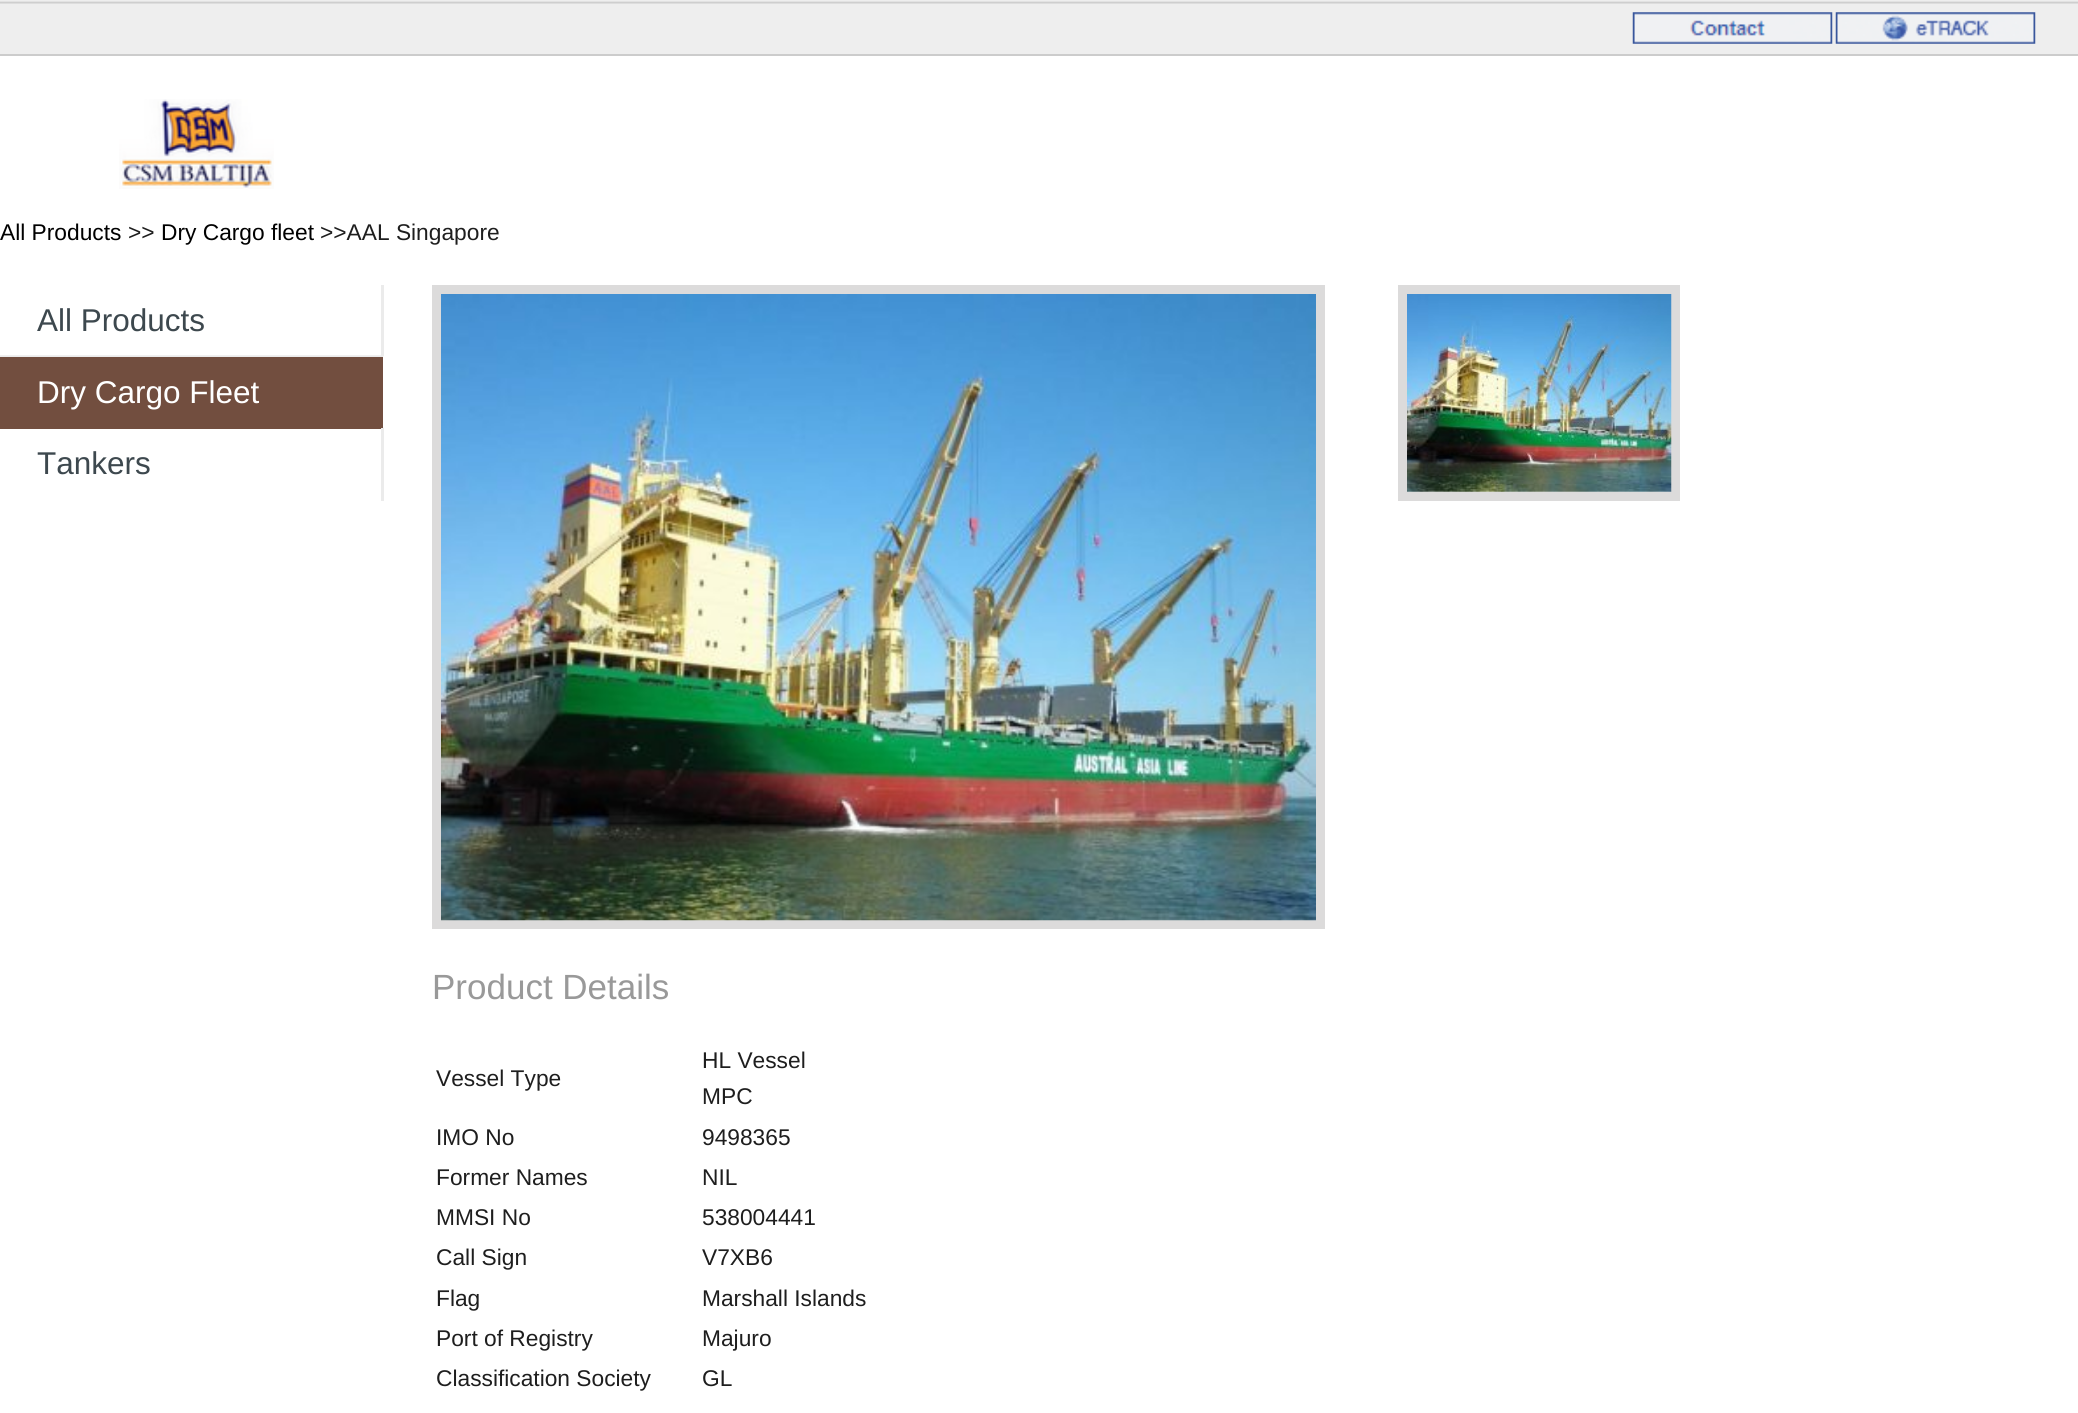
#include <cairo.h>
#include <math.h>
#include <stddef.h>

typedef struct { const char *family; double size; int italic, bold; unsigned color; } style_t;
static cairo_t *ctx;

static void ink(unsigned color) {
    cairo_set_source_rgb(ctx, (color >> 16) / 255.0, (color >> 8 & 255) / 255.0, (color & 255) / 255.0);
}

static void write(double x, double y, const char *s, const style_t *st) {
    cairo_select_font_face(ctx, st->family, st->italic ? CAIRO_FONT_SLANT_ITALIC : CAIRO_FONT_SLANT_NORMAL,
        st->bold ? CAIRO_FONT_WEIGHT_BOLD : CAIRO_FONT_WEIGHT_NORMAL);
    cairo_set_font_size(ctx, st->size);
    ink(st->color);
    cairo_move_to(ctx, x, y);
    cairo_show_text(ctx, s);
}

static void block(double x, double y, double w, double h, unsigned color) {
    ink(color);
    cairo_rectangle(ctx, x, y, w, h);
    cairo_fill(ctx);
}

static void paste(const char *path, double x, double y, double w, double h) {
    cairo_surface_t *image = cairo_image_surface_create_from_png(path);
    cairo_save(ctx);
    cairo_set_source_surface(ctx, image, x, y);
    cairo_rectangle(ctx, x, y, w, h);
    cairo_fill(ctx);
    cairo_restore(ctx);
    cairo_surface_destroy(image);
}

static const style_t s1 = {"Liberation Sans", 22.75, 0, 0, 0x000000};
static const style_t s2 = {"Liberation Sans", 22.75, 0, 0, 0x1e1e1e};
static const style_t s3 = {"Liberation Sans", 31.5, 0, 0, 0x3d484e};
static const style_t s4 = {"Liberation Sans", 31.5, 0, 0, 0xffffff};
static const style_t s5 = {"Liberation Sans", 35, 0, 0, 0x999999};

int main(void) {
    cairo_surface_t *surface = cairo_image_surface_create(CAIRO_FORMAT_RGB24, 2078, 1413);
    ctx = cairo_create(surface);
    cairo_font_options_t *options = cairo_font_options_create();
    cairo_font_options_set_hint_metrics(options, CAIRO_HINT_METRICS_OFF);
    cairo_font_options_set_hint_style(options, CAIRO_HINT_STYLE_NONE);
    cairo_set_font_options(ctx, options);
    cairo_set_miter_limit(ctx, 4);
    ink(0xffffff);
    cairo_paint(ctx);
    paste("pic1.png", 0, 0, 2078, 53);
    block(0, 53, 2078, 1, 0xeeeeee);
    paste("pic2.png", 1632, 12, 201, 32);
    paste("pic3.png", 1835, 12, 201, 32);
    block(0, 54, 2078, 2, 0xcccccc);
    paste("pic4.png", 119, 99, 155, 90);
    write(0, 240, "All Products", &s1);
    write(128, 240, ">>", &s2);
    write(161, 240, "Dry Cargo fleet", &s1);
    write(320, 240, ">>AAL Singapore", &s2);
    paste("pic5.png", 0, 355, 384, 2);
    block(381, 285, 3, 71, 0xebebeb);
    write(37, 331, "All Products", &s3);
    paste("pic6.png", 383, 427, 1, 1);
    block(0, 357, 383, 72, 0x724e3f);
    write(37, 403, "Dry Cargo Fleet", &s4);
    block(381, 428, 3, 73, 0xebebeb);
    write(37, 474, "Tankers", &s3);
    cairo_rectangle(ctx, 436.5, 289.5, 884, 635);
    ink(0xdcdbdb);
    cairo_set_line_width(ctx, 9);
    cairo_stroke(ctx);
    paste("pic7.png", 441, 294, 875, 627);
    cairo_rectangle(ctx, 1402.5, 289.5, 273, 207);
    cairo_stroke(ctx);
    paste("pic8.png", 1407, 294, 265, 198);
    write(432, 999, "Product Details", &s5);
    write(436, 1086, "Vessel Type", &s2);
    write(702, 1068, "HL Vessel", &s2);
    write(702, 1104, "MPC", &s2);
    write(436, 1145, "IMO No", &s2);
    write(702, 1145, "9498365", &s2);
    write(436, 1185, "Former Names", &s2);
    write(702, 1185, "NIL", &s2);
    write(436, 1225, "MMSI No", &s2);
    write(702, 1225, "538004441", &s2);
    write(436, 1265, "Call Sign", &s2);
    write(702, 1265, "V7XB6", &s2);
    write(436, 1306, "Flag", &s2);
    write(702, 1306, "Marshall Islands", &s2);
    write(436, 1346, "Port of Registry", &s2);
    write(702, 1346, "Majuro", &s2);
    write(436, 1386, "Classification Society", &s2);
    write(702, 1386, "GL", &s2);
    cairo_surface_write_to_png(surface, "screenshot.png");
    cairo_font_options_destroy(options);
    cairo_destroy(ctx);
    cairo_surface_destroy(surface);
    return 0;
}
